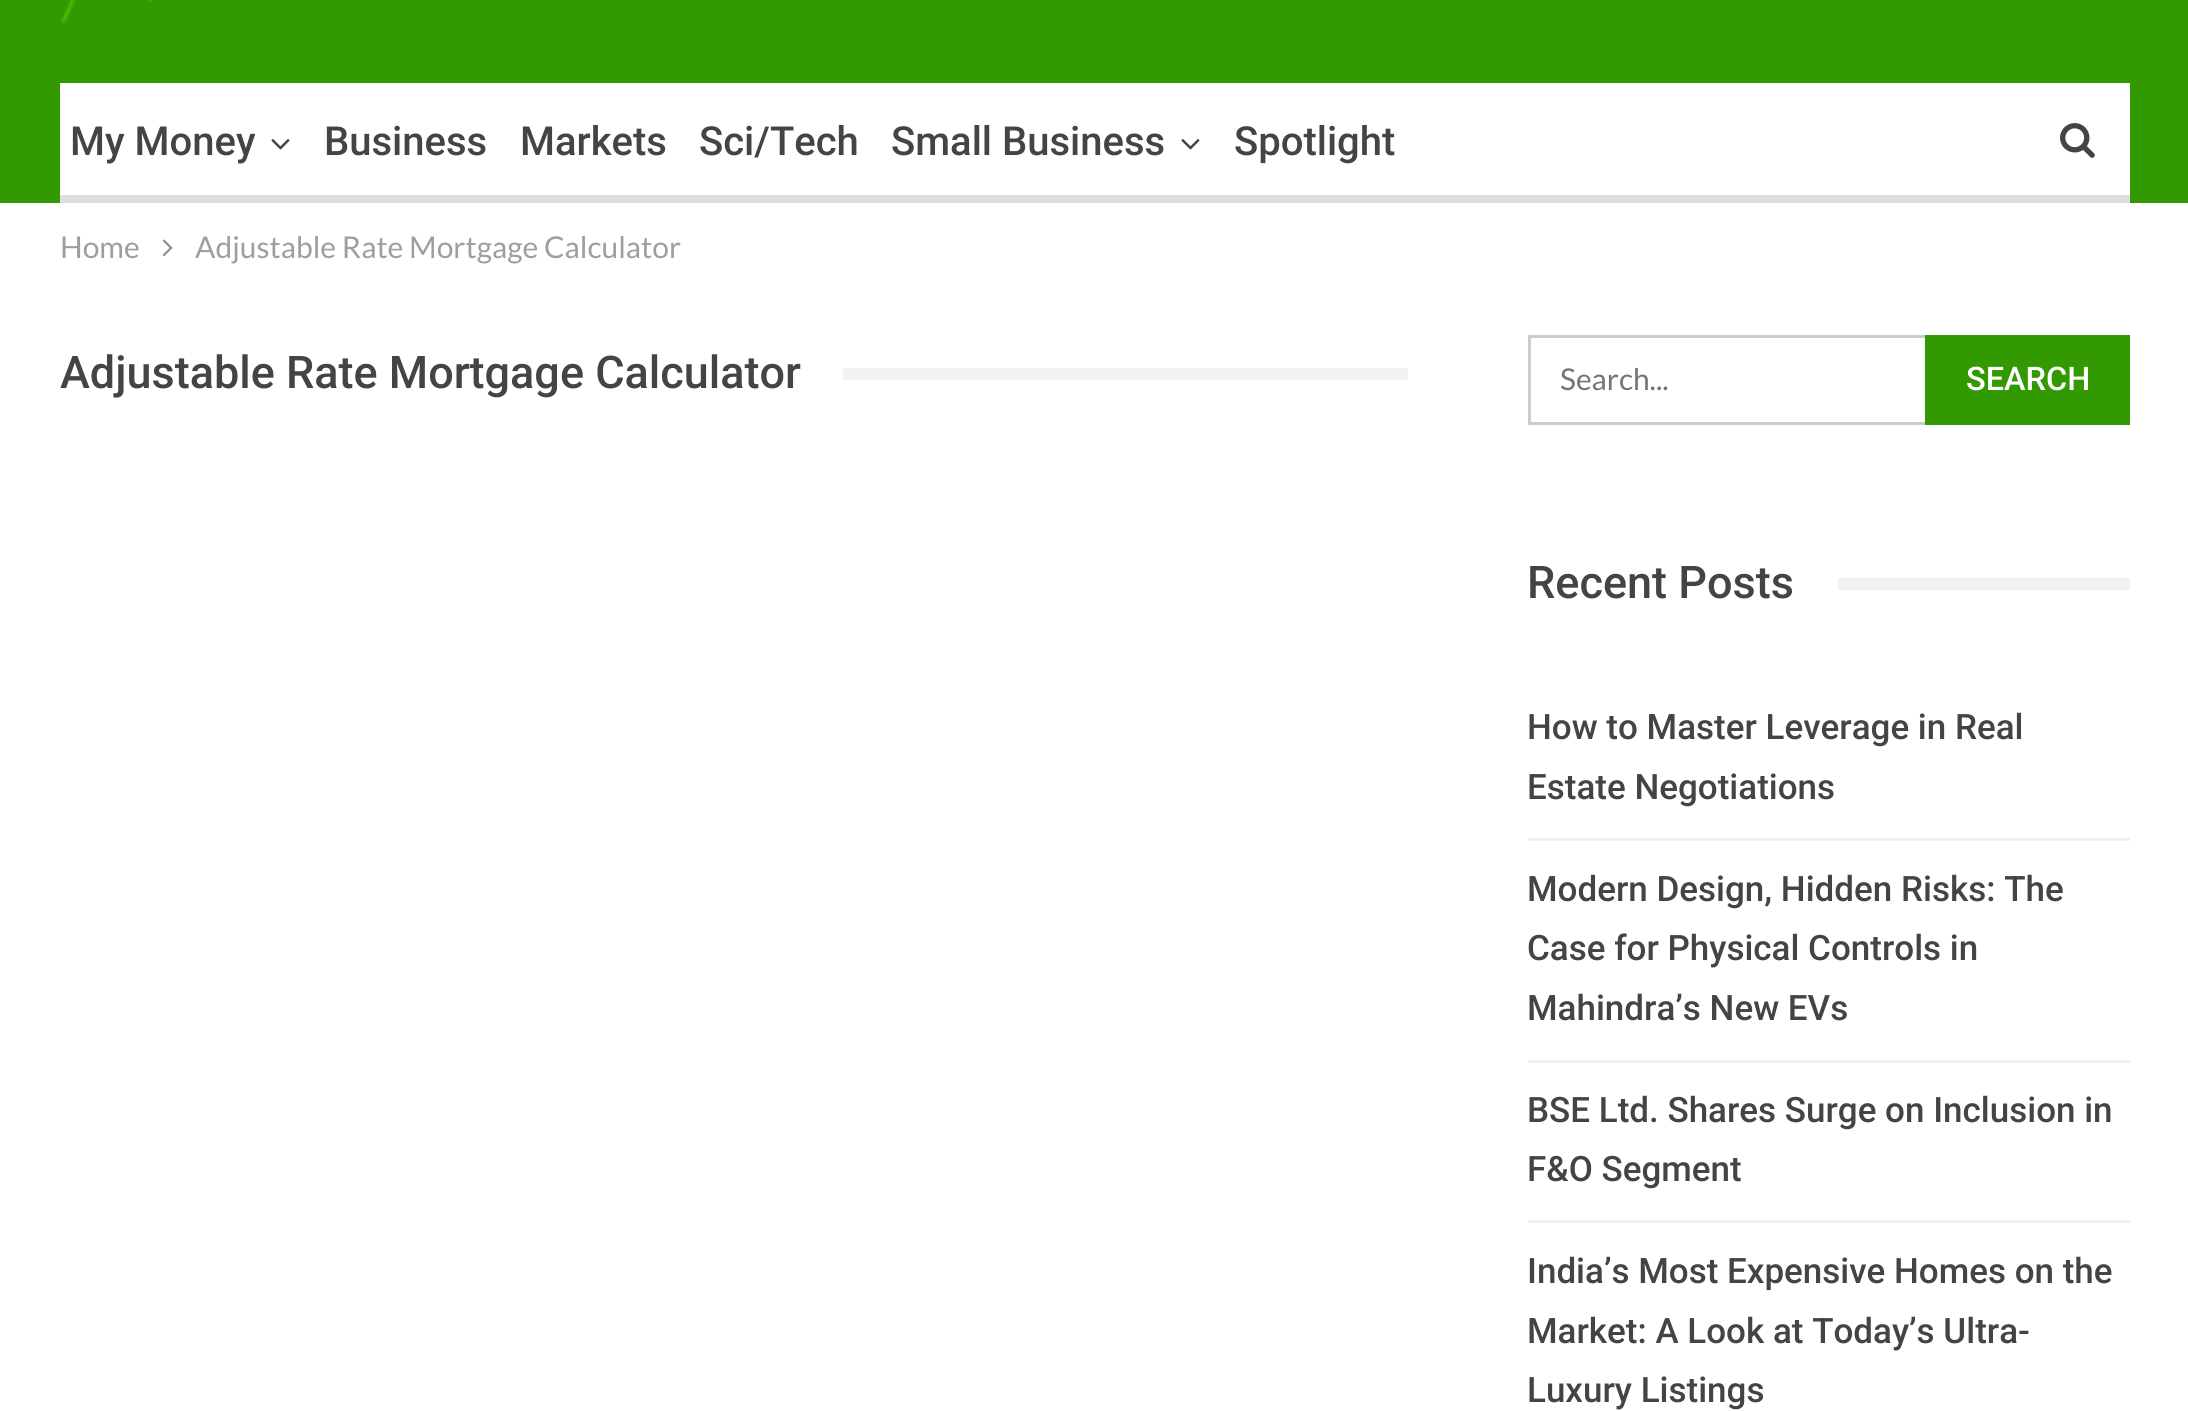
#include <cairo.h>
#include <math.h>
#include <stddef.h>

typedef struct { const char *family; double size; int italic, bold; unsigned color; } style_t;
static cairo_t *ctx;

static void ink(unsigned color) {
    cairo_set_source_rgb(ctx, (color >> 16) / 255.0, (color >> 8 & 255) / 255.0, (color & 255) / 255.0);
}

static void write(double x, double y, const char *s, const style_t *st) {
    cairo_select_font_face(ctx, st->family, st->italic ? CAIRO_FONT_SLANT_ITALIC : CAIRO_FONT_SLANT_NORMAL,
        st->bold ? CAIRO_FONT_WEIGHT_BOLD : CAIRO_FONT_WEIGHT_NORMAL);
    cairo_set_font_size(ctx, st->size);
    ink(st->color);
    cairo_move_to(ctx, x, y);
    cairo_show_text(ctx, s);
}

static void block(double x, double y, double w, double h, unsigned color) {
    ink(color);
    cairo_rectangle(ctx, x, y, w, h);
    cairo_fill(ctx);
}

static void paste(const char *path, double x, double y, double w, double h) {
    cairo_surface_t *image = cairo_image_surface_create_from_png(path);
    cairo_save(ctx);
    cairo_set_source_surface(ctx, image, x, y);
    cairo_rectangle(ctx, x, y, w, h);
    cairo_fill(ctx);
    cairo_restore(ctx);
    cairo_surface_destroy(image);
}

static const style_t s1 = {"Roboto Medium", 40, 0, 0, 0x444444};
static const style_t s2 = {"Lato", 30, 0, 0, 0x9e9e9e};
static const style_t s3 = {"Roboto Medium", 45, 0, 0, 0x444444};
static const style_t s4 = {"Lato", 30, 0, 0, 0x757575};
static const style_t s5 = {"Roboto Medium", 32.5, 0, 0, 0xffffff};
static const style_t s6 = {"Roboto Medium", 35, 0, 0, 0x444444};

int main(void) {
    cairo_surface_t *surface = cairo_image_surface_create(CAIRO_FORMAT_RGB24, 2188, 1411);
    ctx = cairo_create(surface);
    cairo_font_options_t *options = cairo_font_options_create();
    cairo_font_options_set_hint_metrics(options, CAIRO_HINT_METRICS_OFF);
    cairo_font_options_set_hint_style(options, CAIRO_HINT_STYLE_NONE);
    cairo_set_font_options(ctx, options);
    cairo_set_miter_limit(ctx, 4);
    ink(0xffffff);
    cairo_paint(ctx);
    block(0, 0, 2188, 203, 0x339900);
    paste("pic1.png", 60, 0, 94, 23);
    block(60, 83, 2070, 112, 0xffffff);
    block(60, 195, 2070, 8, 0xdedede);
    write(70, 155, "My Money", &s1);
    paste("pic2.png", 271, 139, 19, 11);
    write(324, 155, "Business", &s1);
    write(520, 155, "Markets", &s1);
    write(699, 155, "Sci/Tech", &s1);
    write(891, 155, "Small Business", &s1);
    paste("pic2.png", 1181, 139, 19, 11);
    write(1234, 155, "Spotlight", &s1);
    paste("pic3.png", 2060, 123, 35, 35);
    write(60, 258, "Home", &s2);
    paste("pic4.png", 162, 239, 11, 18);
    write(195, 258, "Adjustable Rate Mortgage Calculator", &s2);
    write(60, 388, "Adjustable Rate Mortgage Calculator", &s3);
    block(843, 368, 565, 12, 0xf2f2f2);
    cairo_rectangle(ctx, 1529.5, 336.5, 599, 87);
    ink(0xcccccc);
    cairo_set_line_width(ctx, 3);
    cairo_stroke(ctx);
    write(1560, 390, "Search...", &s4);
    block(1925, 335, 205, 90, 0x339900);
    write(1966, 390, "SEARCH", &s5);
    write(1527, 598, "Recent Posts", &s3);
    block(1838, 578, 292, 12, 0xf2f2f2);
    block(1528, 838, 602, 3, 0xf0f0f0);
    write(1527, 739, "How to Master Leverage in Real", &s6);
    write(1527, 799, "Estate Negotiations", &s6);
    block(1528, 1060, 602, 3, 0xf0f0f0);
    write(1527, 901, "Modern Design, Hidden Risks: The", &s6);
    write(1527, 960, "Case for Physical Controls in", &s6);
    write(1527, 1020, "Mahindra’s New EVs", &s6);
    block(1528, 1220, 602, 3, 0xf0f0f0);
    write(1527, 1122, "BSE Ltd. Shares Surge on Inclusion in", &s6);
    write(1527, 1181, "F&O Segment", &s6);
    write(1527, 1283, "India’s Most Expensive Homes on the", &s6);
    write(1527, 1343, "Market: A Look at Today’s Ultra-", &s6);
    write(1527, 1402, "Luxury Listings", &s6);
    cairo_surface_write_to_png(surface, "screenshot.png");
    cairo_font_options_destroy(options);
    cairo_destroy(ctx);
    cairo_surface_destroy(surface);
    return 0;
}
